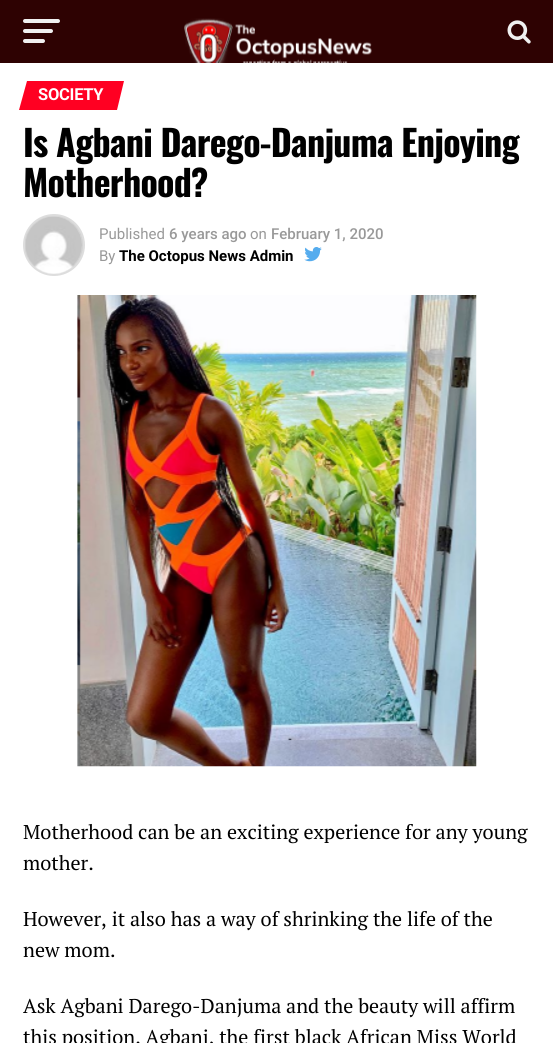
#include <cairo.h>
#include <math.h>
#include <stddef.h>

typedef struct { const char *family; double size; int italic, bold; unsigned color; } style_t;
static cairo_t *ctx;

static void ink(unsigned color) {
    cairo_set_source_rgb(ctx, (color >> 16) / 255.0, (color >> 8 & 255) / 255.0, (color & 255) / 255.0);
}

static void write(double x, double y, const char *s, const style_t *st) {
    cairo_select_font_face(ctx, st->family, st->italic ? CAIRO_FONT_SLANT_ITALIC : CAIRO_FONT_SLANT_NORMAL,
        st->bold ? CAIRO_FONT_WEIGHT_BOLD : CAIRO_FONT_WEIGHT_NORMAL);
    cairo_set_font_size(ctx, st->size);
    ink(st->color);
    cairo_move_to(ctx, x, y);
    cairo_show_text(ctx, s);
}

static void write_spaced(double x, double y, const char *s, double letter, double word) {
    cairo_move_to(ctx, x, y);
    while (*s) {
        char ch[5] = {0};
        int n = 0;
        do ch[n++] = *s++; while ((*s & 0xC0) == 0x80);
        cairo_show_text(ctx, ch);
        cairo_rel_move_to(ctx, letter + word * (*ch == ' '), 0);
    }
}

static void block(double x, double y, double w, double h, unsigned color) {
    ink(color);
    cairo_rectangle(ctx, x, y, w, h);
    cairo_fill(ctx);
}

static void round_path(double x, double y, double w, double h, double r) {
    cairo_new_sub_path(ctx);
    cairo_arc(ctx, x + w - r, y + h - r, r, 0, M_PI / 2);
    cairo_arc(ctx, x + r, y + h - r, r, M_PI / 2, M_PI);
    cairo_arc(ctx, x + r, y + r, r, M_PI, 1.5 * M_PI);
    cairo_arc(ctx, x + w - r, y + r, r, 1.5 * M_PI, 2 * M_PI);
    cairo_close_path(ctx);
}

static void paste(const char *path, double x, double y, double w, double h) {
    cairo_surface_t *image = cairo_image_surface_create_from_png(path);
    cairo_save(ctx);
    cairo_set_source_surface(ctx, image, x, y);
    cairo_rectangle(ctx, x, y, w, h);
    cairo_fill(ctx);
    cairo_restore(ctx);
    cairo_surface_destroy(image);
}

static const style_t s1 = {"Roboto", 15, 0, 0, 0x999999};
static const style_t s2 = {"Roboto Medium", 15, 0, 0, 0x999999};
static const style_t s3 = {"Roboto", 15, 0, 1, 0x000000};
static const style_t s4 = {"PT Serif", 20, 0, 0, 0x000000};

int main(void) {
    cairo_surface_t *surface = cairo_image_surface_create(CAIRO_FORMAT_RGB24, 553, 1043);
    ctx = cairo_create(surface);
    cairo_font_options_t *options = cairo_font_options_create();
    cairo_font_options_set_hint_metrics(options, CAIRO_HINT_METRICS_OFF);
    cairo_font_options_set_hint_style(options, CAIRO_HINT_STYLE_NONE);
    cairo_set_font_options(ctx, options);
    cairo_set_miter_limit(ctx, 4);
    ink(0xffffff);
    cairo_paint(ctx);
    block(0, 0, 553, 63, 0x2e0202);
    ink(0xf0f0f0);
    round_path(23, 19, 37, 4, 2);
    cairo_fill(ctx);
    round_path(23, 29, 30, 4, 2);
    cairo_fill(ctx);
    round_path(23, 39, 22, 4, 2);
    cairo_fill(ctx);
    paste("pic1.png", 184, 18, 188, 45);
    paste("pic2.png", 507, 20, 24, 24);
    ink(0xff0022);
    cairo_new_path(ctx);
    cairo_move_to(ctx, 27, 81);
    cairo_line_to(ctx, 124, 81);
    cairo_line_to(ctx, 117, 110);
    cairo_line_to(ctx, 19, 110);
    cairo_close_path(ctx);
    cairo_fill(ctx);
    cairo_select_font_face(ctx, "Roboto", CAIRO_FONT_SLANT_NORMAL, CAIRO_FONT_WEIGHT_BOLD);
    cairo_set_font_size(ctx, 16.5);
    ink(0xffffff);
    write_spaced(38, 100, "SOCIETY", -0.25, 0);
    cairo_select_font_face(ctx, "Oswald", CAIRO_FONT_SLANT_NORMAL, CAIRO_FONT_WEIGHT_BOLD);
    cairo_set_font_size(ctx, 36);
    ink(0x000000);
    write_spaced(23, 157, "Is Agbani Darego-Danjuma Enjoying", -0.75, 0);
    write_spaced(23, 197, "Motherhood?", -0.75, 0);
    cairo_new_path(ctx);
    cairo_arc(ctx, 54, 245, 29.5, 0, 2 * M_PI);
    ink(0xdddddd);
    cairo_set_line_width(ctx, 3);
    cairo_stroke(ctx);
    paste("pic3.png", 25, 216, 58, 58);
    write(99, 239, "Published", &s1);
    write(169, 239, "6 years ago", &s2);
    write(250, 239, "on", &s1);
    write(271, 239, "February 1, 2020", &s2);
    write(99, 261, "By", &s1);
    write(119, 261, "The Octopus News Admin", &s3);
    paste("pic4.png", 304, 247, 18, 15);
    paste("pic5.png", 77, 295, 400, 472);
    write(23, 839, "Motherhood can be an exciting experience for any young", &s4);
    write(23, 870, "mother.", &s4);
    write(23, 926, "However, it also has a way of shrinking the life of the", &s4);
    write(23, 957, "new mom.", &s4);
    write(23, 1013, "Ask Agbani Darego-Danjuma and the beauty will affirm", &s4);
    write(23, 1044, "this position. Agbani, the first black African Miss World", &s4);
    cairo_surface_write_to_png(surface, "screenshot.png");
    cairo_font_options_destroy(options);
    cairo_destroy(ctx);
    cairo_surface_destroy(surface);
    return 0;
}
